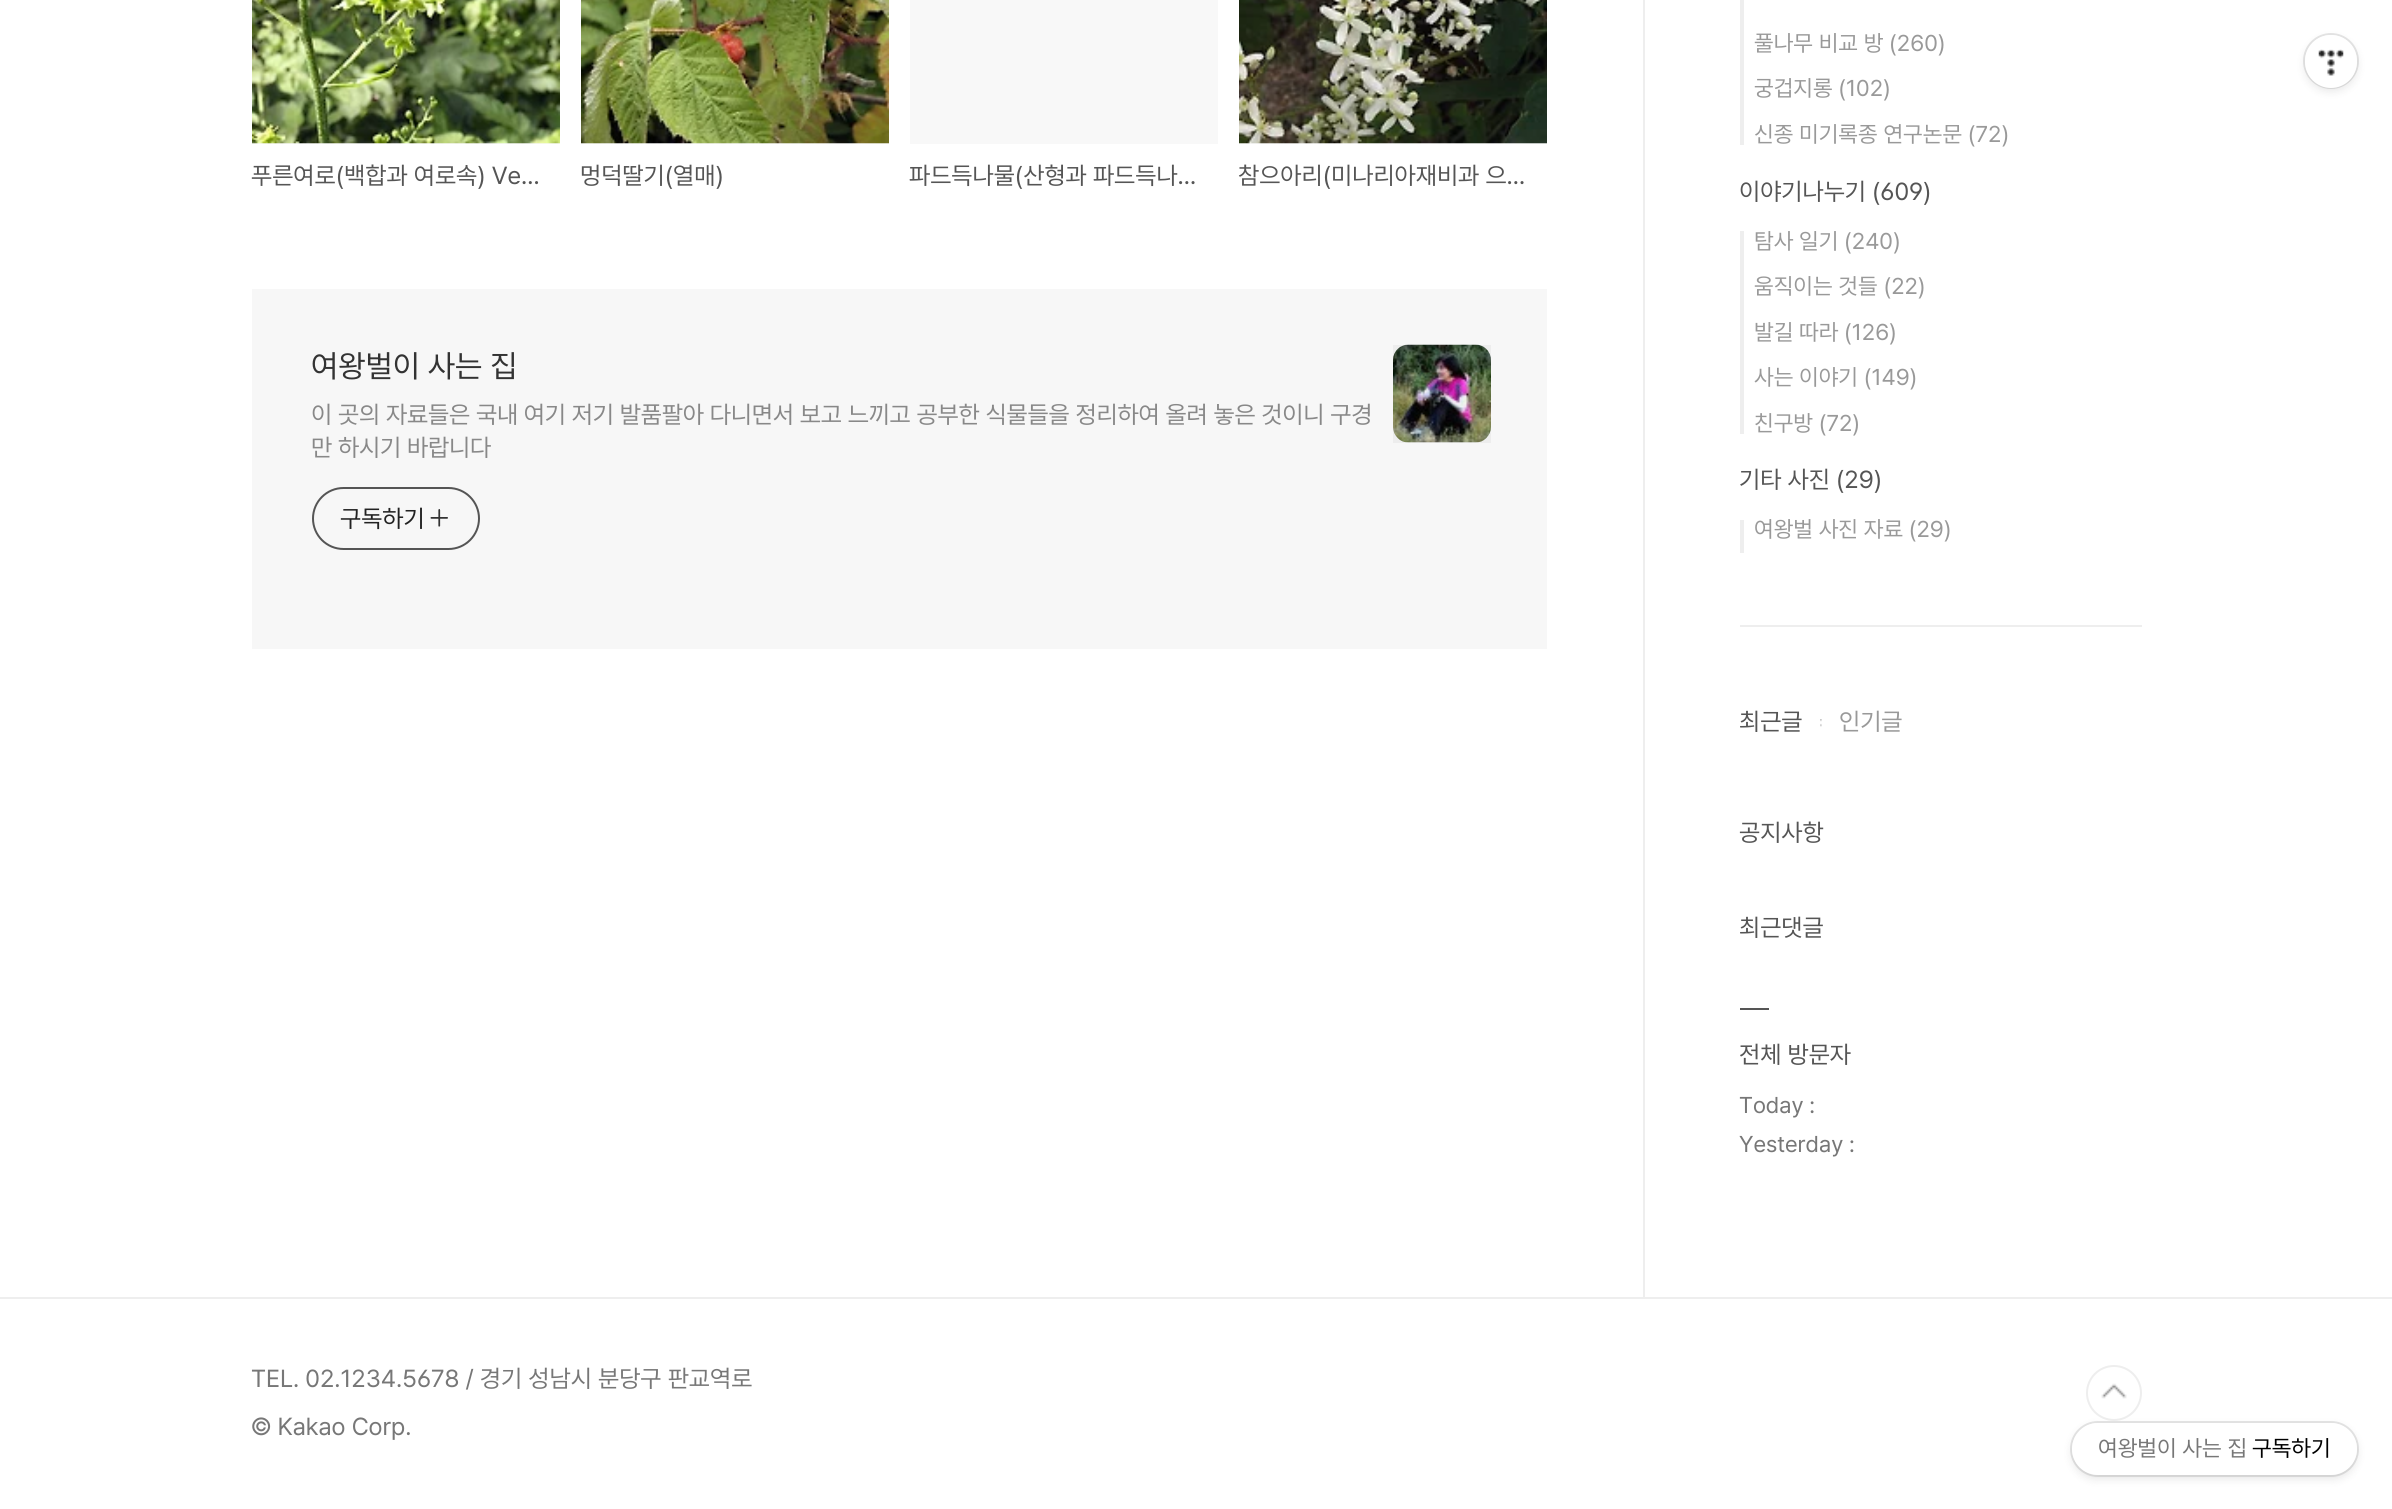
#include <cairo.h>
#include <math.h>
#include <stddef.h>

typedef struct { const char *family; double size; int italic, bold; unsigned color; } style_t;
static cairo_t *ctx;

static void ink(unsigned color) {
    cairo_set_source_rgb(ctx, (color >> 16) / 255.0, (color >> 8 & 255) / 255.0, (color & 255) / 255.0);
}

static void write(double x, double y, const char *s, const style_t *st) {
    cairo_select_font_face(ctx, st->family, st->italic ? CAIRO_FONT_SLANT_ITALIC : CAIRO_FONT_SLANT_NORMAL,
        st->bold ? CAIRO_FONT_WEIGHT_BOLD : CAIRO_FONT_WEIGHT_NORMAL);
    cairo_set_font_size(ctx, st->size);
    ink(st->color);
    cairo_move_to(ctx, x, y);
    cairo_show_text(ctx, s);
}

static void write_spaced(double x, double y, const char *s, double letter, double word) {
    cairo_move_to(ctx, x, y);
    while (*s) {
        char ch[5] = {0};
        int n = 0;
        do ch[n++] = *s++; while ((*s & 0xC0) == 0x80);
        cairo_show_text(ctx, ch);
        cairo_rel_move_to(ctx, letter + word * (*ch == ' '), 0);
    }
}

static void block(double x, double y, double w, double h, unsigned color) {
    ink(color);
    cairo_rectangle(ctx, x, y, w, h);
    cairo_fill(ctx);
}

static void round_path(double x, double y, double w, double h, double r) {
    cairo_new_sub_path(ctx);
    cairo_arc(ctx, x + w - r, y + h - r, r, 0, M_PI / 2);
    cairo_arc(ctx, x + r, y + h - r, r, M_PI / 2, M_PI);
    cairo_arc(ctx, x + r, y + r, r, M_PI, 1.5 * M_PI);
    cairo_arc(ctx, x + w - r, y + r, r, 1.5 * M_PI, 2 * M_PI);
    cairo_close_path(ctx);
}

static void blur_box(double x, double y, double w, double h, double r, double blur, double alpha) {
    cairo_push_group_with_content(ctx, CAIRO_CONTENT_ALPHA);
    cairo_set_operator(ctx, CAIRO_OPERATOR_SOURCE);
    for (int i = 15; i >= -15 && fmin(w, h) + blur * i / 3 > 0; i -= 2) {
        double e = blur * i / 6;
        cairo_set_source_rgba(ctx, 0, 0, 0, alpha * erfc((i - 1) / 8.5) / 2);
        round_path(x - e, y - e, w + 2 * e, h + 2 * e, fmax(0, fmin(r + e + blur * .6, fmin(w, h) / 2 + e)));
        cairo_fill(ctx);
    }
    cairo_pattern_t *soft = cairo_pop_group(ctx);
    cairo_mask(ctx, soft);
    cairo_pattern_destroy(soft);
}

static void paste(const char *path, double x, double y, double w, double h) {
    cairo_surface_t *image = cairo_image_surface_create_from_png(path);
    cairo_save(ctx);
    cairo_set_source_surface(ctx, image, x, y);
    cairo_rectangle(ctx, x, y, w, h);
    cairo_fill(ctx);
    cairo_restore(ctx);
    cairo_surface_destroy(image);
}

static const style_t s1 = {"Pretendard", 24.5, 0, 0, 0x555555};
static const style_t s2 = {"Pretendard", 31.5, 0, 0, 0x333333};
static const style_t s3 = {"Pretendard", 24.5, 0, 0, 0x222222};
static const style_t s4 = {"Pretendard", 22.75, 0, 0, 0x999999};
static const style_t s5 = {"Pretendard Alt", 24.5, 0, 0, 0x555555};
static const style_t s6 = {"Pretendard", 24.5, 0, 0, 0x999999};
static const style_t s7 = {"Pretendard", 22.75, 0, 0, 0x777777};
static const style_t s8 = {"Pretendard Alt", 24.5, 0, 0, 0x777777};
static const style_t s9 = {"Pretendard", 24.5, 0, 0, 0x777777};
static const style_t s10 = {"Pretendard", 22.75, 0, 0, 0x000000};

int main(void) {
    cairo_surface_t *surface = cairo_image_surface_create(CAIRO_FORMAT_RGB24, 2392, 1509);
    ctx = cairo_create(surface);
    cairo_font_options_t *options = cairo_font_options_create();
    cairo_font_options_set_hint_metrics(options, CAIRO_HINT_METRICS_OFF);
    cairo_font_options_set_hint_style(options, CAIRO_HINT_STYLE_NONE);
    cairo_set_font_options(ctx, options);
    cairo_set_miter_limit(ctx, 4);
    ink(0xffffff);
    cairo_paint(ctx);
    block(252, 143, 308, 1, 0xf8f8f8);
    paste("pic1.png", 252, 0, 308, 144);
    write(251, 184, "푸른여로(백합과 여로속) Ve…", &s1);
    block(581, 143, 308, 1, 0xf8f8f8);
    paste("pic2.png", 581, 0, 308, 144);
    write(580, 184, "멍덕딸기(열매)", &s1);
    block(910, 0, 308, 144, 0xf8f8f8);
    write(909, 184, "파드득나물(산형과 파드득나…", &s1);
    block(1239, 143, 308, 1, 0xf8f8f8);
    paste("pic3.png", 1239, 0, 308, 144);
    write(1238, 184, "참으아리(미나리아재비과 으…", &s1);
    block(252, 289, 1295, 360, 0xf7f7f7);
    write(311, 377, "여왕벌이 사는 집", &s2);
    cairo_set_font_size(ctx, 24.5);
    ink(0x888888);
    write_spaced(311, 423, "이 곳의 자료들은 국내 여기 저기 발품팔아 다니면서 보고 느끼고 공부한 식물들을 정리하여 올려 놓은 것이니 구경", -0.18, 0);
    write_spaced(311, 456, "만 하시기 바랍니다", -0.18, 0);
    round_path(313, 488, 166, 61, 30.5);
    ink(0x555555);
    cairo_stroke(ctx);
    write(340, 527, "구독하기", &s3);
    paste("pic4.png", 430, 509, 18, 18);
    paste("pic5.png", 1393, 344, 98, 99);
    cairo_set_source_rgba(ctx, 0, 0, 0, 0.04);
    cairo_rectangle(ctx, 1393, 345, 98, 98);
    cairo_fill(ctx);
    block(1643, 0, 2, 1297, 0xeeeeee);
    block(1740, 0, 4, 145, 0xeeeeee);
    write(1754, 51, "풀나무 비교 방 (260)", &s4);
    write(1754, 96, "궁겁지롱 (102)", &s4);
    write(1754, 142, "신종 미기록종 연구논문 (72)", &s4);
    write(1739, 200, "이야기나누기", &s1);
    write(1872, 200, "(609)", &s5);
    block(1740, 231, 4, 203, 0xeeeeee);
    write(1754, 249, "탐사 일기 (240)", &s4);
    write(1754, 294, "움직이는 것들 (22)", &s4);
    write(1754, 340, "발길 따라 (126)", &s4);
    write(1754, 385, "사는 이야기 (149)", &s4);
    write(1754, 431, "친구방 (72)", &s4);
    write(1739, 488, "기타 사진 (29)", &s1);
    block(1740, 520, 4, 33, 0xeeeeee);
    write(1754, 537, "여왕벌 사진 자료 (29)", &s4);
    block(1740, 625, 402, 2, 0xeeeeee);
    write(1739, 730, "최근글", &s1);
    paste("pic6.png", 1820, 719, 2, 8);
    write(1839, 730, "인기글", &s6);
    write(1739, 841, "공지사항", &s1);
    write(1739, 936, "최근댓글", &s1);
    block(1740, 1008, 29, 2, 0x555555);
    write(1739, 1063, "전체 방문자", &s1);
    write(1739, 1113, "Today :", &s7);
    write(1739, 1152, "Yesterday :", &s7);
    block(0, 1297, 2392, 2, 0xeeeeee);
    write(251, 1387, "TEL. 02.1234.5678 / 경기 성남시 분당구 판교역로", &s8);
    paste("pic7.png", 2101, 1383, 26, 16);
    cairo_arc(ctx, 2114, 1393, 27, 0, 2 * M_PI);
    ink(0xeeeeee);
    cairo_stroke(ctx);
    write(251, 1435, "© Kakao Corp.", &s9);
    ink(0x000000);
    blur_box(2305, 39, 52, 52, 26, 4.5, 0.1);
    cairo_arc(ctx, 2331, 61, 27, 0, 2 * M_PI);
    cairo_set_source_rgba(ctx, 0, 0, 0, 0.1);
    cairo_stroke(ctx);
    ink(0xffffff);
    round_path(2305, 35, 52, 53, 26);
    cairo_fill(ctx);
    paste("pic8.png", 2318, 49, 26, 27);
    ink(0x000000);
    blur_box(2072, 1426, 285, 53, 26.5, 4.5, 0.1);
    round_path(2071, 1422, 287, 54, 27);
    cairo_set_source_rgba(ctx, 0, 0, 0, 0.1);
    cairo_stroke(ctx);
    ink(0xffffff);
    round_path(2072, 1423, 285, 52, 26);
    cairo_fill(ctx);
    write(2098, 1456, "여왕벌이 사는 집", &s7);
    write(2252, 1456, "구독하기", &s10);
    cairo_surface_write_to_png(surface, "screenshot.png");
    cairo_font_options_destroy(options);
    cairo_destroy(ctx);
    cairo_surface_destroy(surface);
    return 0;
}
